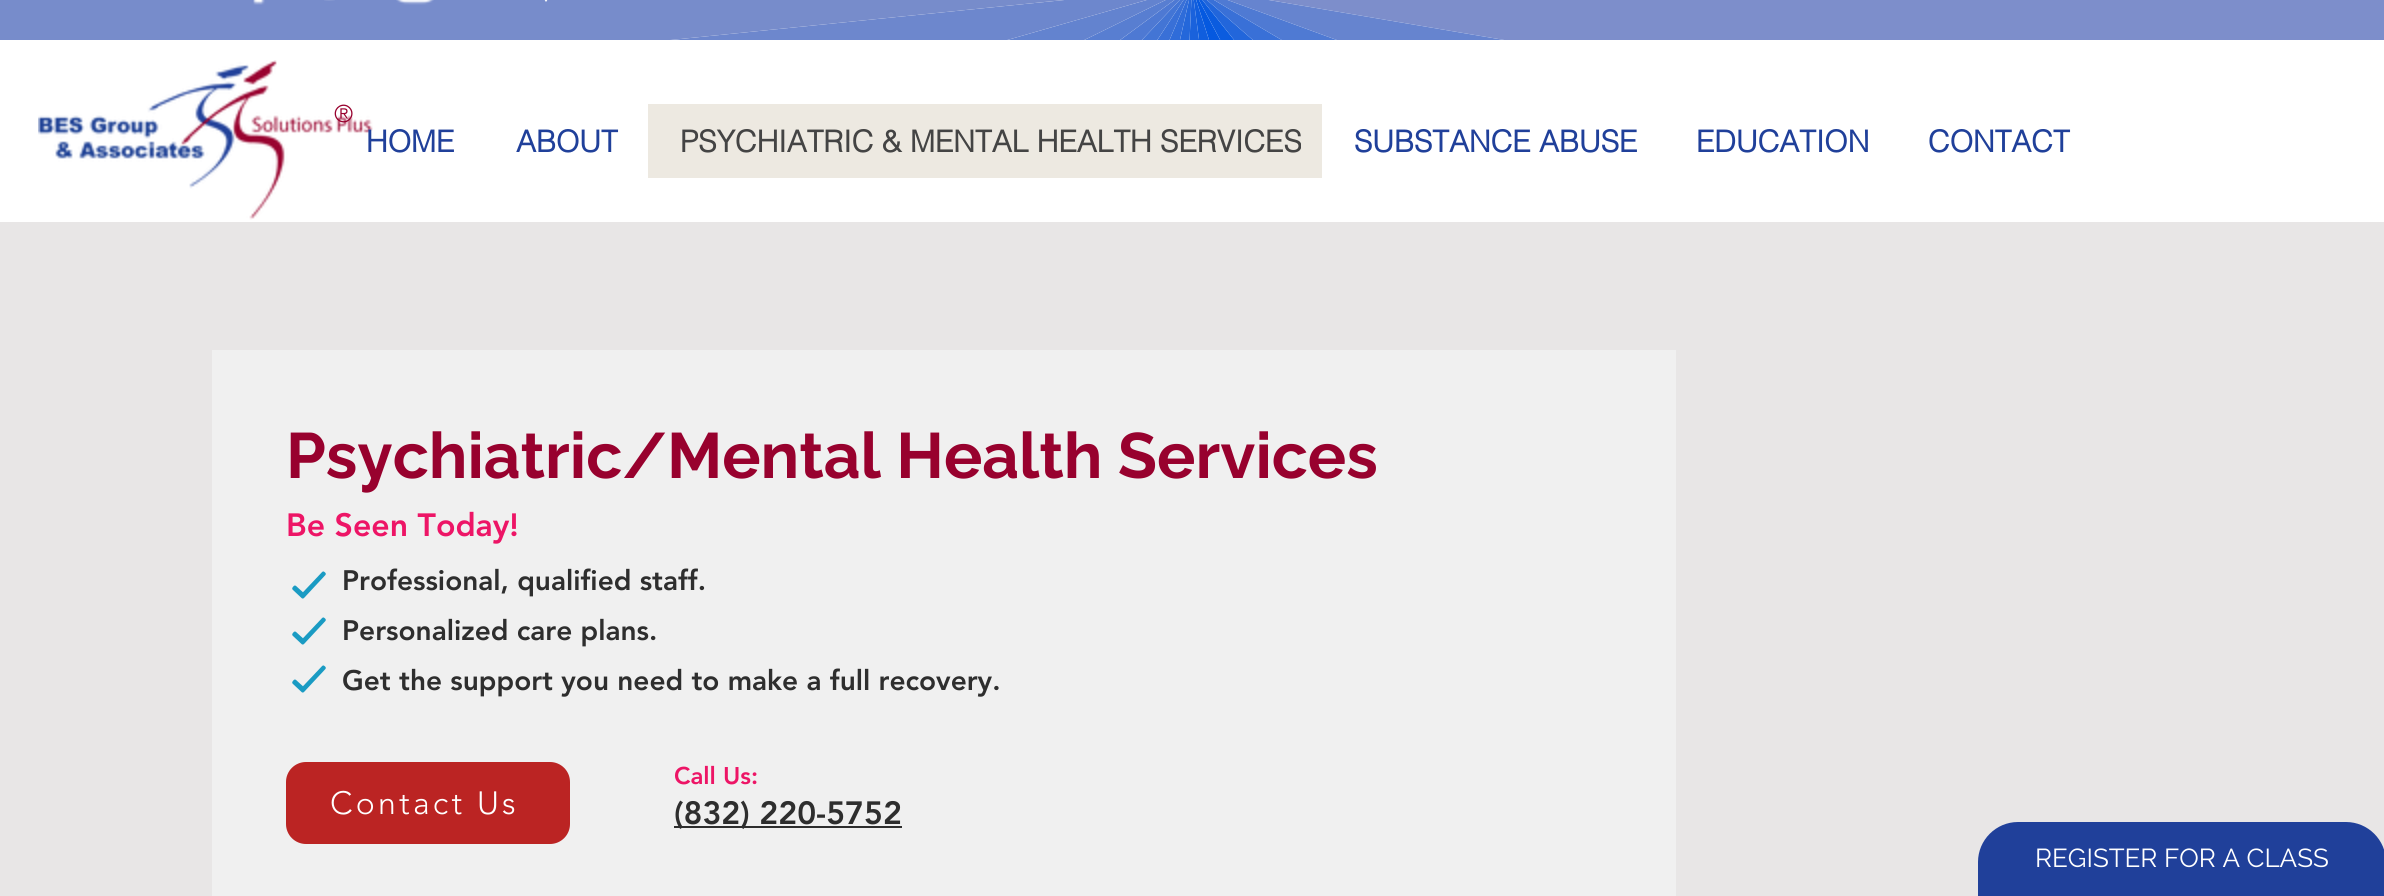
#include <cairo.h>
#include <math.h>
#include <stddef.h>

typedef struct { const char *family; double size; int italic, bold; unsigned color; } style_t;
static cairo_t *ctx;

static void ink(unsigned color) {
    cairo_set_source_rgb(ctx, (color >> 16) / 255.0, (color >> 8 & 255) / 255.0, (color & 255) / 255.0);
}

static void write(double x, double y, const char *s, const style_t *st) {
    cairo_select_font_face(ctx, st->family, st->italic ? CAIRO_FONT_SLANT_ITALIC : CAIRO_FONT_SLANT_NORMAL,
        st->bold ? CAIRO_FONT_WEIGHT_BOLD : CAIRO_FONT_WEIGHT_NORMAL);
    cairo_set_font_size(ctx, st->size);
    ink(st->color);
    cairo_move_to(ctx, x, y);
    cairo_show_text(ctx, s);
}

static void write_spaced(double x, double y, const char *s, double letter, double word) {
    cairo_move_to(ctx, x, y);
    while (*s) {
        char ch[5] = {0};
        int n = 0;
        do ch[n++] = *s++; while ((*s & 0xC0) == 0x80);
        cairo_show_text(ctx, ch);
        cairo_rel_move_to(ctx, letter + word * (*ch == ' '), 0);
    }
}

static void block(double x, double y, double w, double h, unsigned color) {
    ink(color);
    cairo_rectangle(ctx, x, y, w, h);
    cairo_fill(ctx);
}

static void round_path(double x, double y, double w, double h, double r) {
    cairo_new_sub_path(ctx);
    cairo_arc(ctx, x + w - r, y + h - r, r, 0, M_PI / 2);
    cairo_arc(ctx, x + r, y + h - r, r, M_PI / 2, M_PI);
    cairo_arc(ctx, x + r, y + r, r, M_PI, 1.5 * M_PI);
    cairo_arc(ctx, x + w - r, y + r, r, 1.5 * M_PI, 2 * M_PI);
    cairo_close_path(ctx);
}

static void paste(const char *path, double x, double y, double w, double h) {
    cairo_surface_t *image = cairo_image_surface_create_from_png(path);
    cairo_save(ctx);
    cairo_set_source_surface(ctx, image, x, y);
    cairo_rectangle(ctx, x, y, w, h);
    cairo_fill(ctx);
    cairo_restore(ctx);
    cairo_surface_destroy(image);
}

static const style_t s1 = {"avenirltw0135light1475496 Light", 24, 0, 0, 0x98012e};
static const style_t s2 = {"helvetica", 30, 0, 1, 0x20409a};
static const style_t s3 = {"helvetica", 30, 0, 1, 0x444444};
static const style_t s4 = {"Raleway", 64, 0, 1, 0x98012e};
static const style_t s5 = {"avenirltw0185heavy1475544 Black", 32, 0, 0, 0xed1566};
static const style_t s6 = {"avenirltw0185heavy1475544 Black", 28, 0, 0, 0x2e2e2e};
static const style_t s7 = {"avenirltw0185heavy1475544 Black", 24, 0, 0, 0xed1566};
static const style_t s8 = {"avenirltw0185heavy1475544 Black", 32, 0, 0, 0x2e2e2e};
static const style_t s9 = {"Raleway", 26, 0, 0, 0xffffff};

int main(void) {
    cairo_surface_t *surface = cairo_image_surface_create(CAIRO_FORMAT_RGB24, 2384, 896);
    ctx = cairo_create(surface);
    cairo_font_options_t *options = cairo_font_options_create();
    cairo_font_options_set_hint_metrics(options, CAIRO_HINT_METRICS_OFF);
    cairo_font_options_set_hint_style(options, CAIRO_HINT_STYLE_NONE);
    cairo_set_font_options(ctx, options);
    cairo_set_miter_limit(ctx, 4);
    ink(0xffffff);
    cairo_paint(ctx);
    paste("pic1.png", 0, 0, 2384, 40);
    paste("pic2.png", 253, 0, 12, 5);
    paste("pic3.png", 324, 0, 11, 1);
    paste("pic4.png", 396, 0, 38, 5);
    paste("pic5.png", 544, 0, 4, 2);
    paste("pic6.png", 38, 60, 335, 160);
    write(334, 122, "®", &s1);
    write(366, 152, "HOME", &s2);
    write(516, 152, "ABOUT", &s2);
    block(648, 104, 674, 74, 0xede9e1);
    write(680, 152, "PSYCHIATRIC & MENTAL HEALTH SERVICES", &s3);
    write(1354, 152, "SUBSTANCE ABUSE", &s2);
    write(1696, 152, "EDUCATION", &s2);
    write(1928, 152, "CONTACT", &s2);
    block(0, 222, 2384, 674, 0xe8e6e6);
    block(212, 350, 1464, 546, 0xf0f0f0);
    write(286, 478, "Psychiatric/Mental Health Services", &s4);
    write(286, 536, "Be Seen Today!", &s5);
    paste("pic7.png", 292, 571, 34, 28);
    write(342, 590, "Professional, qualified staff.", &s6);
    write(342, 640, "Personalized care plans.", &s6);
    write(342, 690, "Get the support you need to make a full recovery.", &s6);
    paste("pic7.png", 292, 617, 34, 28);
    paste("pic7.png", 292, 665, 34, 28);
    write(674, 784, "Call Us:", &s7);
    ink(0xbb2423);
    round_path(286, 762, 284, 82, 20);
    cairo_fill(ctx);
    cairo_select_font_face(ctx, "avenirltw0135light1475496 Light", CAIRO_FONT_SLANT_NORMAL, CAIRO_FONT_WEIGHT_NORMAL);
    cairo_set_font_size(ctx, 32);
    ink(0xffffff);
    write_spaced(330, 814, "Contact Us", 3.25, 0);
    block(674, 826, 228, 2, 0x2e2e2e);
    write(674, 824, "(832) 220-5752", &s8);
    ink(0x20409a);
    cairo_new_path(ctx);
    cairo_move_to(ctx, 2018, 822);
    cairo_line_to(ctx, 2346, 822);
    cairo_curve_to(ctx, 2368, 822, 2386, 840, 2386, 862);
    cairo_line_to(ctx, 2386, 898);
    cairo_line_to(ctx, 1978, 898);
    cairo_line_to(ctx, 1978, 862);
    cairo_curve_to(ctx, 1978, 840, 1996, 822, 2018, 822);
    cairo_close_path(ctx);
    cairo_fill(ctx);
    write(2035, 867, "REGISTER FOR A CLASS", &s9);
    cairo_surface_write_to_png(surface, "screenshot.png");
    cairo_font_options_destroy(options);
    cairo_destroy(ctx);
    cairo_surface_destroy(surface);
    return 0;
}
